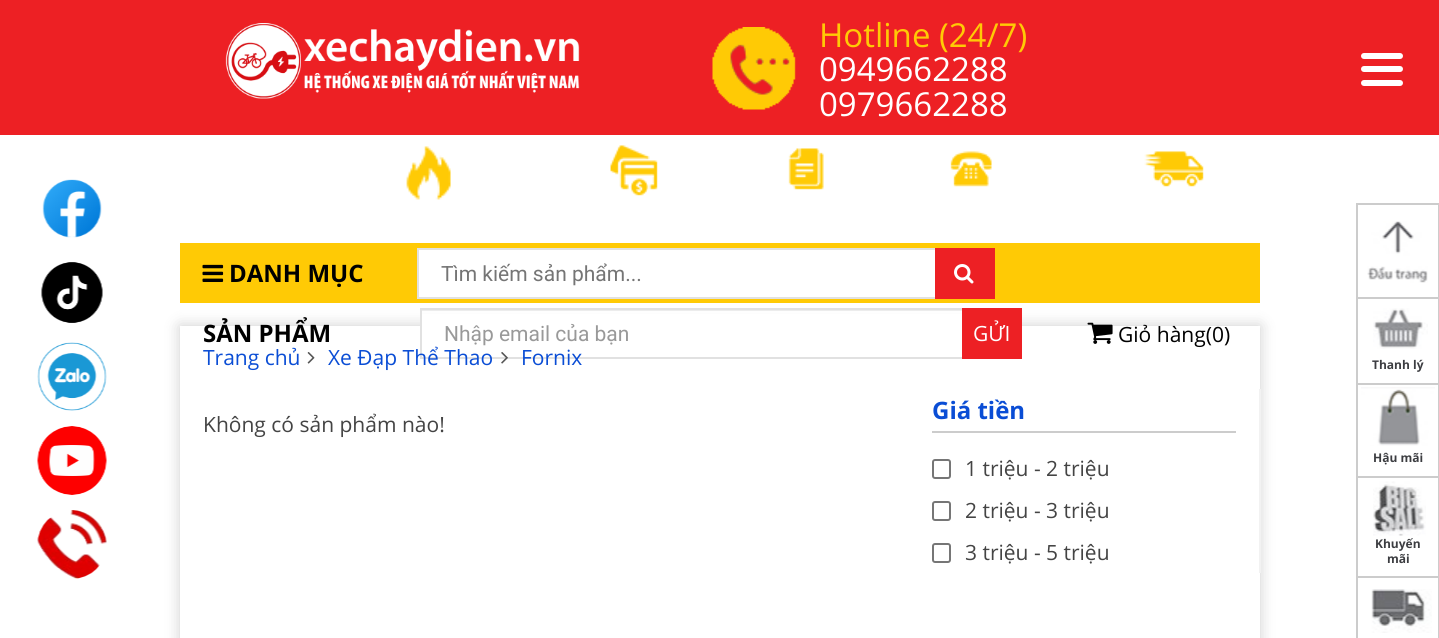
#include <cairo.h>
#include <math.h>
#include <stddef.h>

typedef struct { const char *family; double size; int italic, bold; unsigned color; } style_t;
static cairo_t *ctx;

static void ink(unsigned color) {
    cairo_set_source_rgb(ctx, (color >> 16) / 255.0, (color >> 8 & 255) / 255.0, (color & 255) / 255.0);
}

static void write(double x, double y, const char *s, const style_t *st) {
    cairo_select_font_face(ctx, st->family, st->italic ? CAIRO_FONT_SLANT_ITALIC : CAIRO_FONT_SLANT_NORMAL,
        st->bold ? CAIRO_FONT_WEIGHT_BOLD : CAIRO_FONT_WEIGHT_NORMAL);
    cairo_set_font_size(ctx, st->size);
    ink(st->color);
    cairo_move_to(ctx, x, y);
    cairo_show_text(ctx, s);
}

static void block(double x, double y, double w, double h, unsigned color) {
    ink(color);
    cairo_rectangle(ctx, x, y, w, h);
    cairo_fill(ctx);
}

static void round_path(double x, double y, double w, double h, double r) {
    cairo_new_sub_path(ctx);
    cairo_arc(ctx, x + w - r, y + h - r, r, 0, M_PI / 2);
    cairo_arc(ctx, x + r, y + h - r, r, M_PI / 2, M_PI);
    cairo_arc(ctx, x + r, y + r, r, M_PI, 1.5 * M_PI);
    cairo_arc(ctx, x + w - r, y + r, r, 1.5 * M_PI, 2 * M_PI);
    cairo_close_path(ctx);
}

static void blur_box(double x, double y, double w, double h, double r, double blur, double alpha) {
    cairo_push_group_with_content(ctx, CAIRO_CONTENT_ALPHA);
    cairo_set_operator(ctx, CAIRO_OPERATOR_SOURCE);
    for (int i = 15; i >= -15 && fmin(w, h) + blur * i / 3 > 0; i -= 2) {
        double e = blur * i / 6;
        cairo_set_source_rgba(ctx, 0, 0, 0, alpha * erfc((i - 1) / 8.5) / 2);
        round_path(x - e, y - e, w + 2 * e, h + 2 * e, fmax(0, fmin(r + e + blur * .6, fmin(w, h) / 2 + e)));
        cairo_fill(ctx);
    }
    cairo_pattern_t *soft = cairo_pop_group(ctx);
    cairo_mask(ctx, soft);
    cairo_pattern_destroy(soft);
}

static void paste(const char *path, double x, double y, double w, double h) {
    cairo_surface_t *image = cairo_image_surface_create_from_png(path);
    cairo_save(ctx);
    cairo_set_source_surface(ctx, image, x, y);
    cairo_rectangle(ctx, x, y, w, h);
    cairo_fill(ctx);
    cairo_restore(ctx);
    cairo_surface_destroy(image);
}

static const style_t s1 = {"Open Sans", 33, 0, 0, 0xffca05};
static const style_t s2 = {"Open Sans", 33, 0, 0, 0xffffff};
static const style_t s3 = {"Open Sans", 24, 0, 1, 0x000000};
static const style_t s4 = {"Roboto", 21, 0, 0, 0x757575};
static const style_t s5 = {"Roboto", 21, 0, 0, 0x999999};
static const style_t s6 = {"Open Sans", 21, 0, 0, 0xffffff};
static const style_t s7 = {"Open Sans", 21, 0, 0, 0x000000};
static const style_t s8 = {"Open Sans", 21, 0, 0, 0x0a4dd5};
static const style_t s9 = {"Open Sans", 21, 0, 0, 0x444444};
static const style_t s10 = {"Open Sans", 24, 0, 1, 0x0a4dd5};
static const style_t s11 = {"Open Sans", 12, 0, 1, 0x3c3d41};

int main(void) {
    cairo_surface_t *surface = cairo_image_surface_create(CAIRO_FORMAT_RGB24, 1439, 638);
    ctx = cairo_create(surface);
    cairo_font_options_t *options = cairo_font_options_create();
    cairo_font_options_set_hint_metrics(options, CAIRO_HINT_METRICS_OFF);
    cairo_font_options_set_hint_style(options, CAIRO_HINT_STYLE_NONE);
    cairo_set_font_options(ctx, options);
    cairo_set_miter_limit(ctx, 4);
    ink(0xffffff);
    cairo_paint(ctx);
    block(0, 0, 1439, 135, 0xed2024);
    paste("pic1.png", 225, 23, 355, 76);
    paste("pic2.png", 712, 27, 84, 83);
    write(819, 47, "Hotline (24/7)", &s1);
    write(819, 81, "0949662288", &s2);
    write(819, 116, "0979662288", &s2);
    paste("pic3.png", 406, 146, 45, 54);
    paste("pic4.png", 610, 145, 48, 51);
    paste("pic5.png", 788, 148, 36, 42);
    paste("pic6.png", 950, 151, 42, 36);
    paste("pic7.png", 1144, 151, 60, 36);
    round_path(1361, 53, 42, 6, 3);
    cairo_fill(ctx);
    round_path(1361, 66, 42, 6, 3);
    cairo_fill(ctx);
    round_path(1361, 80, 42, 6, 3);
    cairo_fill(ctx);
    paste("pic8.png", 42, 179, 60, 59);
    paste("pic9.png", 41, 262, 62, 61);
    paste("pic10.png", 37, 342, 70, 69);
    paste("pic11.png", 37, 426, 70, 69);
    paste("pic12.png", 37, 510, 70, 69);
    block(413, 243, 847, 60, 0xffca05);
    paste("pic15.png", 1087, 322, 26, 22);
    cairo_save(ctx);
    cairo_set_fill_rule(ctx, CAIRO_FILL_RULE_EVEN_ODD);
    cairo_new_path(ctx);
    cairo_move_to(ctx, 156, 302);
    cairo_line_to(ctx, 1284, 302);
    cairo_line_to(ctx, 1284, 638);
    cairo_line_to(ctx, 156, 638);
    cairo_close_path(ctx);
    cairo_move_to(ctx, 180, 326);
    cairo_line_to(ctx, 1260, 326);
    cairo_line_to(ctx, 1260, 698);
    cairo_line_to(ctx, 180, 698);
    cairo_close_path(ctx);
    cairo_clip(ctx);
    ink(0x000000);
    blur_box(180, 326, 1080, 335, 0, 7.5, 0.2);
    cairo_restore(ctx);
    block(180, 243, 233, 60, 0xffca05);
    paste("pic13.png", 202, 264, 22, 18);
    write(229, 282, "DANH MỤC", &s3);
    write(203, 342, "SẢN PHẨM", &s3);
    block(419, 250, 516, 47, 0xffffff);
    cairo_rectangle(ctx, 418, 249, 576, 49);
    ink(0xe1e1e1);
    cairo_stroke(ctx);
    write(441, 281, "Tìm kiếm sản phẩm...", &s4);
    block(935, 248, 60, 51, 0xed2024);
    paste("pic14.png", 954, 264, 20, 20);
    block(422, 314, 540, 12, 0xffffff);
    block(422, 310, 540, 1, 0xececec);
    cairo_rectangle(ctx, 421, 309, 576, 49);
    ink(0xe1e1e1);
    cairo_stroke(ctx);
    write(444, 341, "Nhập email của bạn", &s5);
    block(962, 308, 60, 51, 0xed2024);
    write(973, 341, "GỬI", &s6);
    write(1118, 342, "Giỏ hàng(0)", &s7);
    write(203, 365, "Trang chủ", &s8);
    paste("pic16.png", 307, 352, 8, 12);
    write(328, 365, "Xe Đạp Thể Thao", &s8);
    paste("pic17.png", 501, 352, 7, 12);
    write(521, 365, "Fornix", &s8);
    write(203, 432, "Không có sản phẩm nào!", &s9);
    block(1259, 389, 2, 184, 0xf2f2f2);
    block(932, 431, 304, 2, 0xcccccc);
    write(932, 419, "Giá tiền", &s10);
    round_path(933, 460, 17, 18, 2);
    ink(0x767676);
    cairo_stroke(ctx);
    write(965, 476, "1 triệu - 2 triệu", &s9);
    round_path(933, 502, 17, 18, 2);
    ink(0x767676);
    cairo_stroke(ctx);
    write(965, 518, "2 triệu - 3 triệu", &s9);
    round_path(933, 544, 17, 18, 2);
    ink(0x767676);
    cairo_stroke(ctx);
    write(965, 560, "3 triệu - 5 triệu", &s9);
    cairo_rectangle(ctx, 1357, 204, 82, 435);
    ink(0xcccccc);
    cairo_stroke(ctx);
    block(1358, 297, 81, 2, 0xcccccc);
    paste("pic18.png", 1367, 221, 61, 62);
    block(1358, 383, 81, 2, 0xcccccc);
    paste("pic19.png", 1373, 308, 55, 41);
    write(1372, 369, "Thanh lý", &s11);
    block(1358, 476, 81, 2, 0xcccccc);
    paste("pic20.png", 1361, 387, 74, 59);
    write(1373, 462, "Hậu mãi", &s11);
    block(1358, 576, 81, 2, 0xcccccc);
    paste("pic21.png", 1373, 481, 53, 55);
    write(1375, 548, "Khuyến", &s11);
    write(1387, 563, "mãi", &s11);
    paste("pic22.png", 1371, 589, 61, 44);
    cairo_surface_write_to_png(surface, "screenshot.png");
    cairo_font_options_destroy(options);
    cairo_destroy(ctx);
    cairo_surface_destroy(surface);
    return 0;
}
